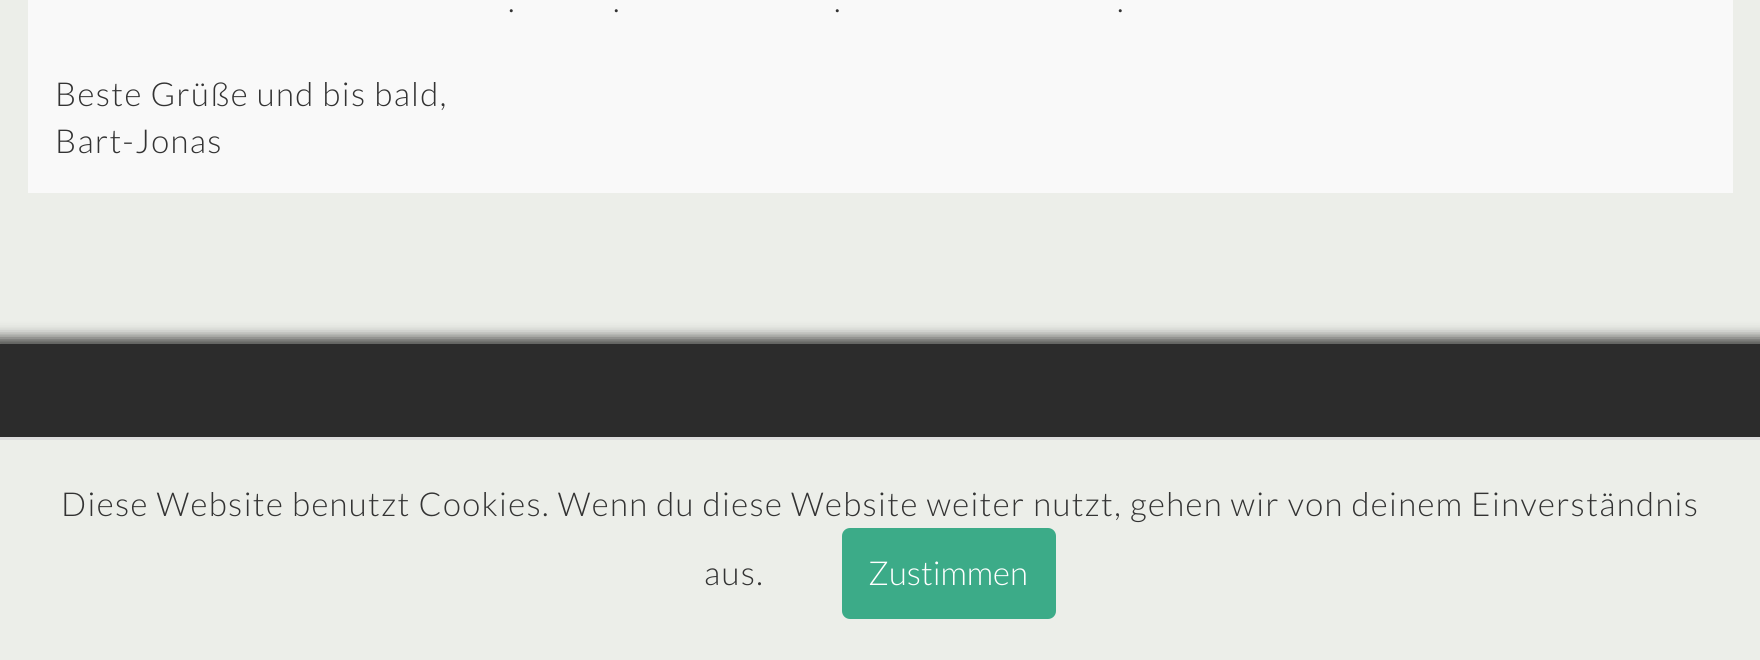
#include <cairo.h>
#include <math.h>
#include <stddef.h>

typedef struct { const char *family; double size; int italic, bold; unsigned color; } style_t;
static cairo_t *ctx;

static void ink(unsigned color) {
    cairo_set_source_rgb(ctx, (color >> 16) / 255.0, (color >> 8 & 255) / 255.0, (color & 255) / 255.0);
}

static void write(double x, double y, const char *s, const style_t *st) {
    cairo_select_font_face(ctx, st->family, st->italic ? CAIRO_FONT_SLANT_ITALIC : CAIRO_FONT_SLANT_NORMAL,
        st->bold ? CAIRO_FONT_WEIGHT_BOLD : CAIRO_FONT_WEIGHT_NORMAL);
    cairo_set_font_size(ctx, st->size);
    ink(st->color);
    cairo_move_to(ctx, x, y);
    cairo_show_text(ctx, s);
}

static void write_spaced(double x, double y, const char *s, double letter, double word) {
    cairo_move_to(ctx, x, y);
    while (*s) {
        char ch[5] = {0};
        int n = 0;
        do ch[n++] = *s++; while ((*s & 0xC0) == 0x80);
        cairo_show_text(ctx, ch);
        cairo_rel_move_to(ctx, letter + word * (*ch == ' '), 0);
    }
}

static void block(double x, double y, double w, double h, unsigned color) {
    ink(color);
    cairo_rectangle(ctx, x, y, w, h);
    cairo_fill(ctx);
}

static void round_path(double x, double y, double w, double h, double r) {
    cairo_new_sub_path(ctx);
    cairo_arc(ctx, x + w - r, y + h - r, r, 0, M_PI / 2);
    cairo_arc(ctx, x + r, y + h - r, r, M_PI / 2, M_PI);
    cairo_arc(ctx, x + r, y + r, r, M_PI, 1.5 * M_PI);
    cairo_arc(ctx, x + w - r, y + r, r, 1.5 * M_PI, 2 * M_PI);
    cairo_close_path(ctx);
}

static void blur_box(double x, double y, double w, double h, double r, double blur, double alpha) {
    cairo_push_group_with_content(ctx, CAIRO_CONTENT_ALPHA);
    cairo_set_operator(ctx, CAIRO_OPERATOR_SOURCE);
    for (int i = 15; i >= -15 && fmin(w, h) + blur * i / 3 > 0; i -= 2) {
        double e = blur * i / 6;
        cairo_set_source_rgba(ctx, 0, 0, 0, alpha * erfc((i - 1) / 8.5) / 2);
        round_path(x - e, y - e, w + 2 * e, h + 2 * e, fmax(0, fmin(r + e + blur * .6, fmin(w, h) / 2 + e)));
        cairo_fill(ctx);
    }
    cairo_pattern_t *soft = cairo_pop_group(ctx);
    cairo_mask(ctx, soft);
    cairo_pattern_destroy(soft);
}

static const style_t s1 = {"Lato Light", 33, 0, 0, 0xffffff};

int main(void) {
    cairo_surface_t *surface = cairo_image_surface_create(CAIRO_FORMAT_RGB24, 1760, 660);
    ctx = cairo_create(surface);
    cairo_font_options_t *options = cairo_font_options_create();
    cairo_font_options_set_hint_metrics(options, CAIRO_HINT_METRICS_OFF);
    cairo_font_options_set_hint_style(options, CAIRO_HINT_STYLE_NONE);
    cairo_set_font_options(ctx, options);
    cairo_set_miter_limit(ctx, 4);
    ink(0xeceee9);
    cairo_paint(ctx);
    block(28, 0, 1705, 193, 0xf9f9f9);
    cairo_select_font_face(ctx, "Lato Light", CAIRO_FONT_SLANT_NORMAL, CAIRO_FONT_WEIGHT_NORMAL);
    cairo_set_font_size(ctx, 33);
    ink(0x333333);
    write_spaced(508, 12, ".", 1.38, 0);
    write_spaced(613, 12, ".", 1.38, 0);
    write_spaced(834, 12, ".", 1.38, 0);
    write_spaced(1117, 12, ".", 1.38, 0);
    write_spaced(55, 106, "Beste Grüße und bis bald,", 1.38, 0);
    write_spaced(55, 153, "Bart-Jonas", 1.38, 0);
    ink(0x000000);
    blur_box(-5, 338, 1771, 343, 0, 7, 0.75);
    block(0, 344, 1760, 93, 0x2c2c2c);
    block(0, 440, 1760, 220, 0xeceee9);
    block(0, 437, 1760, 3, 0xdddddd);
    ink(0x333333);
    write_spaced(61, 516, "Diese Website benutzt Cookies. Wenn du diese Website weiter nutzt, gehen wir von deinem Einverständnis", 1.38, 0);
    write_spaced(704, 585, "aus.", 1.38, 0);
    ink(0x3cab88);
    round_path(842, 528, 214, 91, 8);
    cairo_fill(ctx);
    write(868, 585, "Zustimmen", &s1);
    cairo_surface_write_to_png(surface, "screenshot.png");
    cairo_font_options_destroy(options);
    cairo_destroy(ctx);
    cairo_surface_destroy(surface);
    return 0;
}
